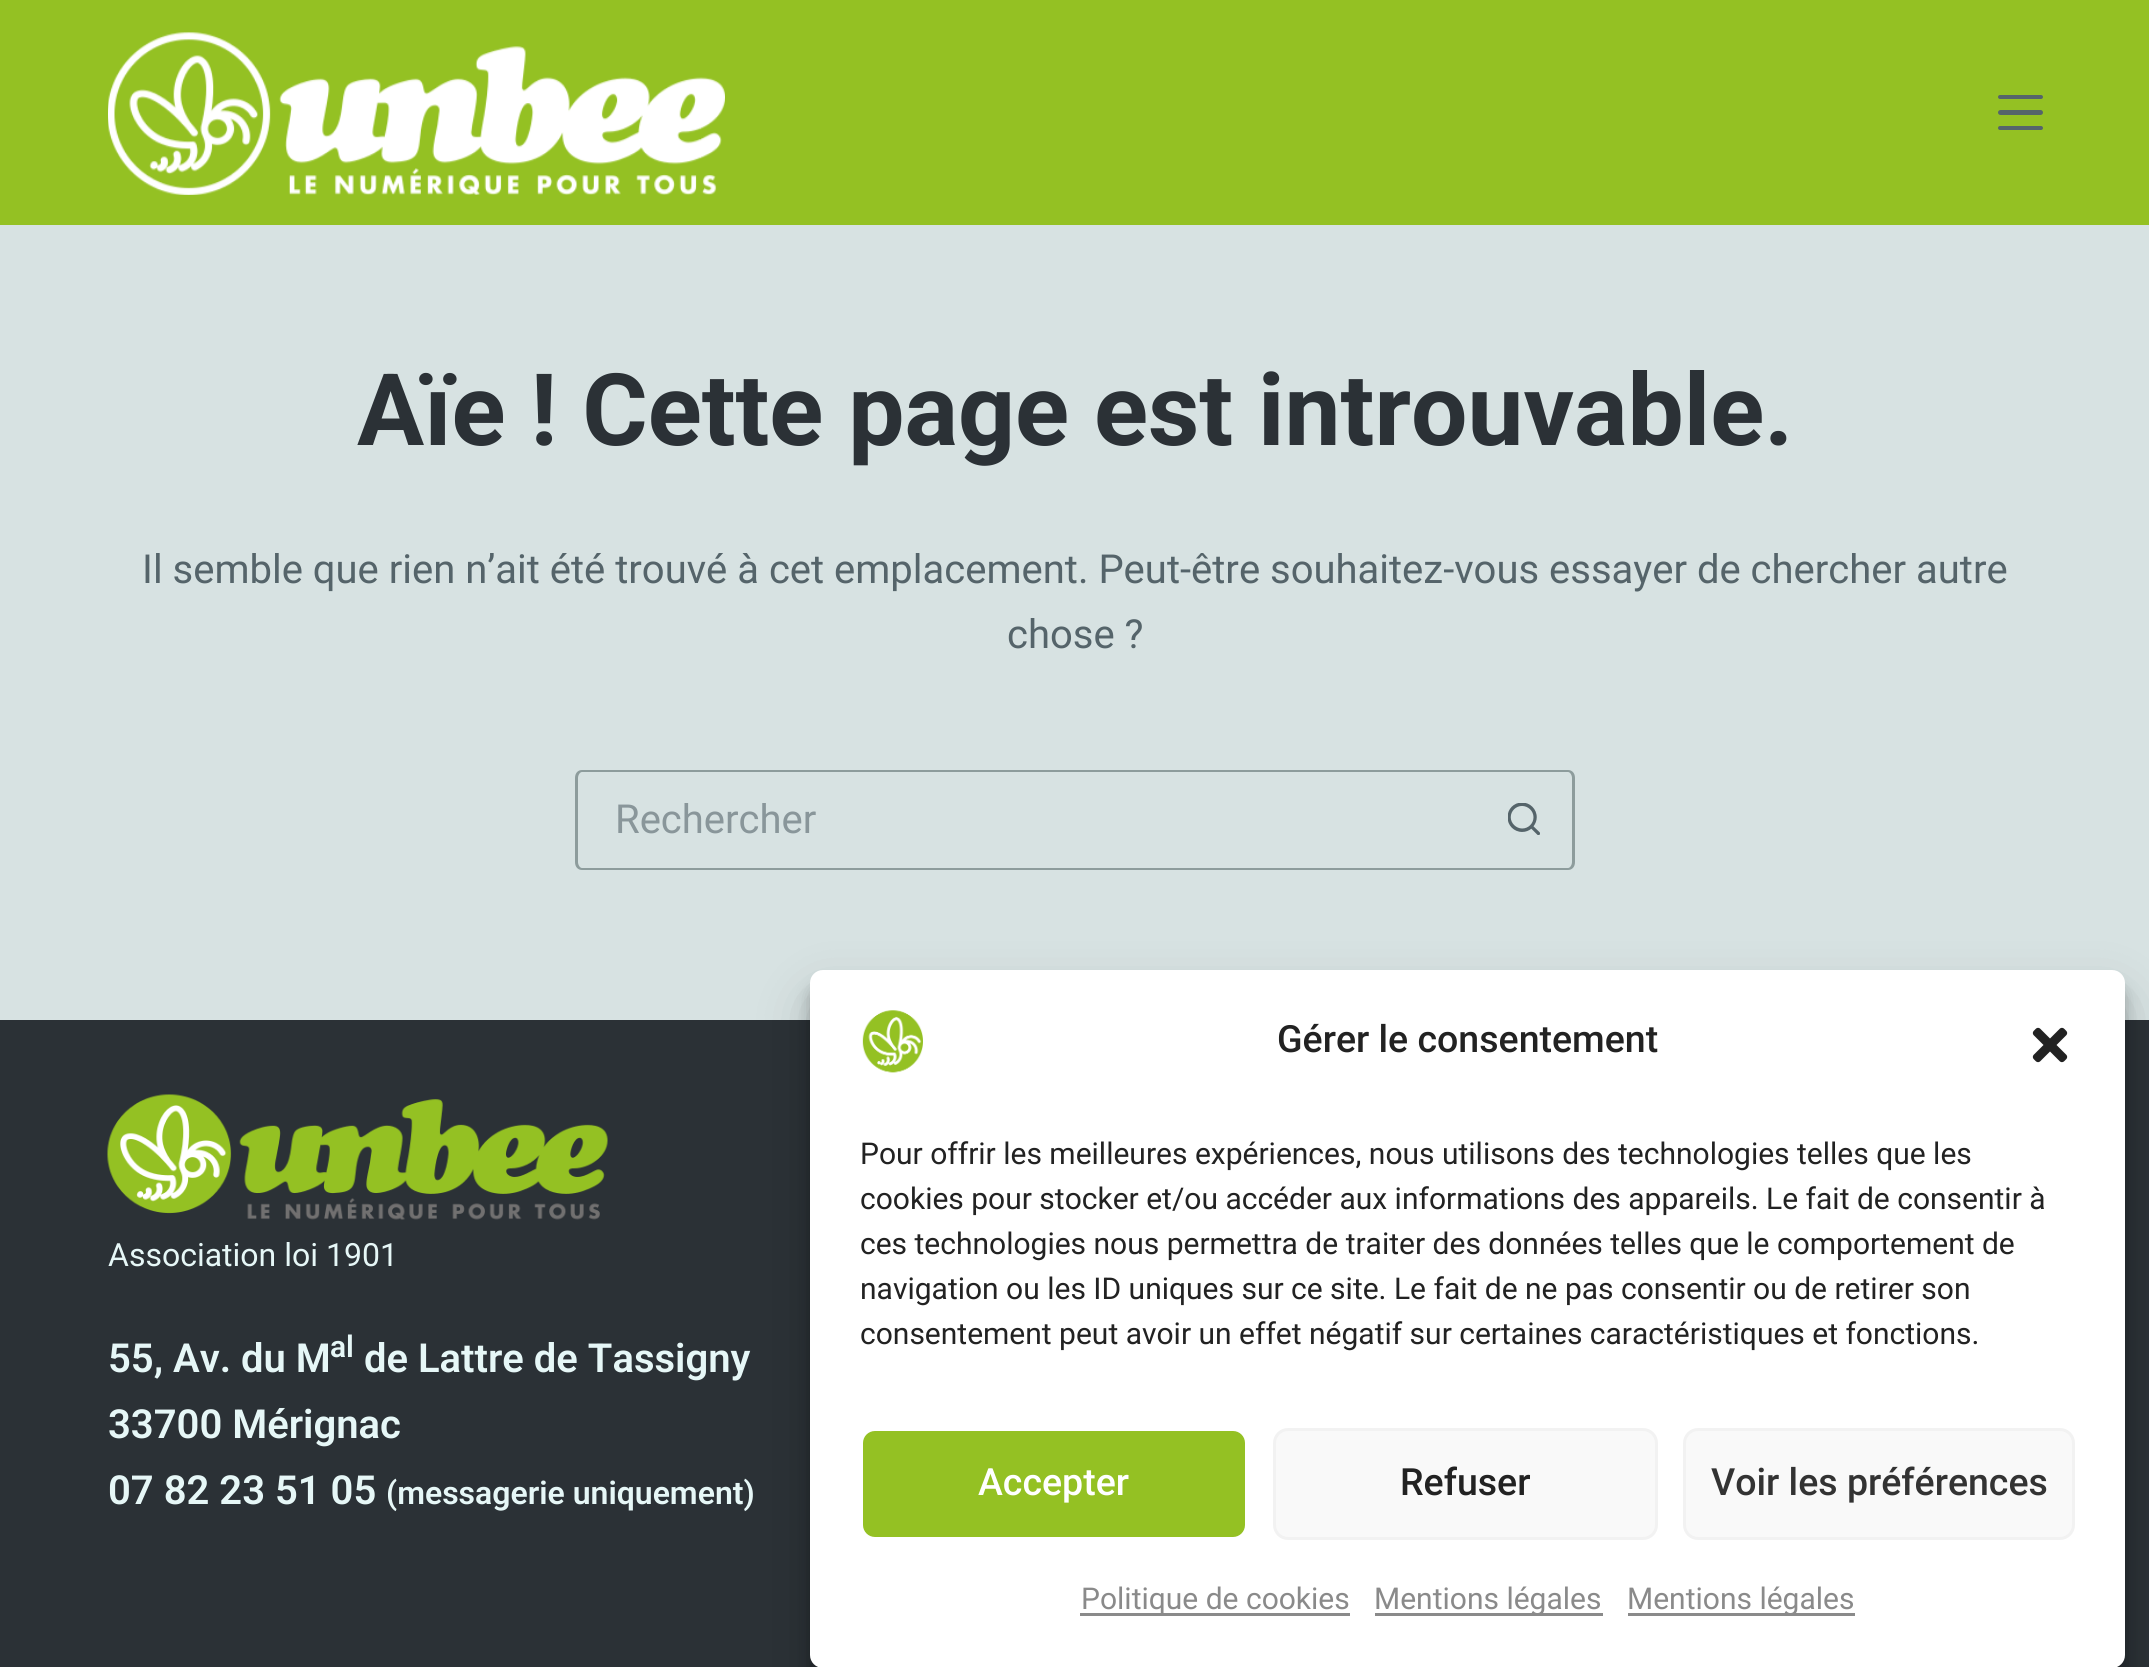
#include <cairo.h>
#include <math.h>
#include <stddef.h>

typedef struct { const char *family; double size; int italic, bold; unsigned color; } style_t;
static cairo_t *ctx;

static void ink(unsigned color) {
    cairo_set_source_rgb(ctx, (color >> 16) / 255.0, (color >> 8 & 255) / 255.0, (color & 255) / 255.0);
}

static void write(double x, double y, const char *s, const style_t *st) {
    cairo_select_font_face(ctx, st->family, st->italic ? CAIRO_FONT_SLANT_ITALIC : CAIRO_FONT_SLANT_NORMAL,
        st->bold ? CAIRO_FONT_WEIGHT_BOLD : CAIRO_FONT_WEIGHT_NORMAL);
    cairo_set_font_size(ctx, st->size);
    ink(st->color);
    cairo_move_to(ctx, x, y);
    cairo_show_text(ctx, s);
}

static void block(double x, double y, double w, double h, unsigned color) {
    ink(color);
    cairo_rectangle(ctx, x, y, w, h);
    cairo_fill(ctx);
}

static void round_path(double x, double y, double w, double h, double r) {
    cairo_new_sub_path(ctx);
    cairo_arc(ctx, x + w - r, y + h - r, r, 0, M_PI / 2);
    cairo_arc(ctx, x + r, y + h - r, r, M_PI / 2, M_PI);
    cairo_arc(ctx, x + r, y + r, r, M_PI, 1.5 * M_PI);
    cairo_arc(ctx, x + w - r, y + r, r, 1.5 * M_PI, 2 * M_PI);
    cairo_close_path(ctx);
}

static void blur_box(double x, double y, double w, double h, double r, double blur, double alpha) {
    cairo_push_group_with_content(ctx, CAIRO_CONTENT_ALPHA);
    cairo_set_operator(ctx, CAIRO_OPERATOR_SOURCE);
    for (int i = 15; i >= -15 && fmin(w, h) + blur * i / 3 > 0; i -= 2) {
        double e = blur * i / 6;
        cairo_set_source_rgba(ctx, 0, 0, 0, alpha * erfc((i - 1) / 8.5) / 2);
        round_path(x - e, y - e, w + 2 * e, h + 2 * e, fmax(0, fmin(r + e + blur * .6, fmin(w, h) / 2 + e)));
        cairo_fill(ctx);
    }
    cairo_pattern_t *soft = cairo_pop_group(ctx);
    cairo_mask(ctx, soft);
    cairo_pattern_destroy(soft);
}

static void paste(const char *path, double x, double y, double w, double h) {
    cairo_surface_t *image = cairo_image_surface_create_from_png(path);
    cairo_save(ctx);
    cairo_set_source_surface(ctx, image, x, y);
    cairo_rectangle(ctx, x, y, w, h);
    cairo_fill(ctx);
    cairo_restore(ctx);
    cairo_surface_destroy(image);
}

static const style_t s1 = {"Roboto", 100, 0, 1, 0x2b3136};
static const style_t s2 = {"Roboto", 40, 0, 0, 0x55646a};
static const style_t s3 = {"Roboto", 40, 0, 0, 0x89969a};
static const style_t s4 = {"Roboto", 32, 0, 0, 0xe6f7f7};
static const style_t s5 = {"Roboto SemiBold", 40, 0, 0, 0xe6f7f7};
static const style_t s6 = {"Roboto SemiBold", 30, 0, 0, 0xe6f7f7};
static const style_t s7 = {"Roboto SemiBold", 32, 0, 0, 0xe6f7f7};
static const style_t s8 = {"Roboto Medium", 37.5, 0, 0, 0x222222};
static const style_t s9 = {"Roboto", 30, 0, 0, 0x222222};
static const style_t s10 = {"Roboto Medium", 37.5, 0, 0, 0xffffff};
static const style_t s11 = {"Roboto Medium", 37.5, 0, 0, 0x333333};
static const style_t s12 = {"Roboto", 30, 0, 0, 0x8a8a8a};

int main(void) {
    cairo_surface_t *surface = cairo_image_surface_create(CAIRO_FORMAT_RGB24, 2149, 1667);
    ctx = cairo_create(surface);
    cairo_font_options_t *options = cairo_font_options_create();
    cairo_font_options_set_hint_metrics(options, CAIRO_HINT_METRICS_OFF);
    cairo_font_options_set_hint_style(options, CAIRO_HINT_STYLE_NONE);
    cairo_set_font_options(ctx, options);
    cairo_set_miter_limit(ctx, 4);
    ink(0xd7e2e2);
    cairo_paint(ctx);
    block(0, 0, 2149, 225, 0x94c123);
    paste("pic1.png", 108, 32, 617, 163);
    ink(0x55646a);
    round_path(1998, 95, 45, 4, 2);
    cairo_fill(ctx);
    round_path(1998, 110, 45, 5, 2.5);
    cairo_fill(ctx);
    round_path(1998, 126, 45, 4, 2);
    cairo_fill(ctx);
    write(357, 445, "Aïe ! Cette page est introuvable.", &s1);
    write(142, 583, "Il semble que rien n’ait été trouvé à cet emplacement. Peut-être souhaitez-vous essayer de chercher autre", &s2);
    write(1007, 648, "chose ?", &s2);
    ink(0x8d9c9c);
    cairo_set_fill_rule(ctx, CAIRO_FILL_RULE_EVEN_ODD);
    cairo_new_path(ctx);
    cairo_move_to(ctx, 582, 770);
    cairo_line_to(ctx, 1475, 770);
    cairo_line_to(ctx, 1475, 870);
    cairo_line_to(ctx, 582, 870);
    cairo_curve_to(ctx, 578, 870, 575, 867, 575, 862);
    cairo_line_to(ctx, 575, 778);
    cairo_curve_to(ctx, 575, 773, 578, 770, 582, 770);
    cairo_close_path(ctx);
    cairo_move_to(ctx, 582, 772);
    cairo_line_to(ctx, 1475, 772);
    cairo_line_to(ctx, 1475, 868);
    cairo_line_to(ctx, 582, 868);
    cairo_curve_to(ctx, 580, 868, 578, 865, 578, 862);
    cairo_line_to(ctx, 578, 778);
    cairo_curve_to(ctx, 578, 775, 580, 772, 582, 772);
    cairo_close_path(ctx);
    cairo_fill(ctx);
    write(615, 833, "Rechercher", &s3);
    ink(0x8d9c9c);
    cairo_new_path(ctx);
    cairo_move_to(ctx, 1475, 770);
    cairo_line_to(ctx, 1568, 770);
    cairo_curve_to(ctx, 1572, 770, 1575, 773, 1575, 778);
    cairo_line_to(ctx, 1575, 862);
    cairo_curve_to(ctx, 1575, 867, 1572, 870, 1568, 870);
    cairo_line_to(ctx, 1475, 870);
    cairo_close_path(ctx);
    cairo_move_to(ctx, 1475, 772);
    cairo_line_to(ctx, 1568, 772);
    cairo_curve_to(ctx, 1570, 772, 1572, 775, 1572, 778);
    cairo_line_to(ctx, 1572, 862);
    cairo_curve_to(ctx, 1572, 865, 1570, 868, 1568, 868);
    cairo_line_to(ctx, 1475, 868);
    cairo_close_path(ctx);
    cairo_fill(ctx);
    paste("pic2.png", 1508, 803, 32, 32);
    block(0, 1020, 2149, 647, 0x2b3136);
    paste("pic3.png", 107, 1094, 501, 126);
    write(108, 1266, "Association loi 1901", &s4);
    write(108, 1372, "55, Av. du M", &s5);
    write(330, 1357, "al", &s6);
    write(364, 1372, "de Lattre de Tassigny", &s5);
    write(108, 1438, "33700 Mérignac", &s5);
    write(108, 1504, "07 82 23 51 05", &s5);
    write(386, 1504, "(messagerie uniquement)", &s7);
    ink(0x000000);
    blur_box(810, 985, 1315, 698, 13, 7.5, 0.23);
    blur_box(810, 995, 1315, 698, 13, 25, 0.19);
    ink(0xffffff);
    round_path(810, 970, 1315, 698, 13);
    cairo_fill(ctx);
    paste("pic4.png", 862, 1010, 61, 63);
    write(1277, 1052, "Gérer le consentement", &s8);
    paste("pic5.png", 2032, 1027, 36, 36);
    write(860, 1164, "Pour offrir les meilleures expériences, nous utilisons des technologies telles que les", &s9);
    write(860, 1209, "cookies pour stocker et/ou accéder aux informations des appareils. Le fait de consentir à", &s9);
    write(860, 1254, "ces technologies nous permettra de traiter des données telles que le comportement de", &s9);
    write(860, 1299, "navigation ou les ID uniques sur ce site. Le fait de ne pas consentir ou de retirer son", &s9);
    write(860, 1344, "consentement peut avoir un effet négatif sur certaines caractéristiques et fonctions.", &s9);
    ink(0x94c123);
    round_path(861.5, 1429.5, 385, 109, 13.5);
    cairo_fill_preserve(ctx);
    ink(0xffffff);
    cairo_set_line_width(ctx, 3);
    cairo_stroke(ctx);
    write(978, 1495, "Accepter", &s10);
    ink(0xf9f9f9);
    round_path(1274.5, 1429.5, 382, 109, 13.5);
    cairo_fill_preserve(ctx);
    ink(0xf2f2f2);
    cairo_stroke(ctx);
    write(1400, 1495, "Refuser", &s8);
    ink(0xf9f9f9);
    round_path(1684.5, 1429.5, 389, 109, 13.5);
    cairo_fill_preserve(ctx);
    ink(0xf2f2f2);
    cairo_stroke(ctx);
    write(1711, 1495, "Voir les préférences", &s11);
    block(1080, 1613, 270, 3, 0x8a8a8a);
    write(1081, 1609, "Politique de cookies", &s12);
    block(1375, 1613, 228, 3, 0x8a8a8a);
    write(1374, 1609, "Mentions légales", &s12);
    block(1628, 1613, 227, 3, 0x8a8a8a);
    write(1627, 1609, "Mentions légales", &s12);
    cairo_surface_write_to_png(surface, "screenshot.png");
    cairo_font_options_destroy(options);
    cairo_destroy(ctx);
    cairo_surface_destroy(surface);
    return 0;
}
